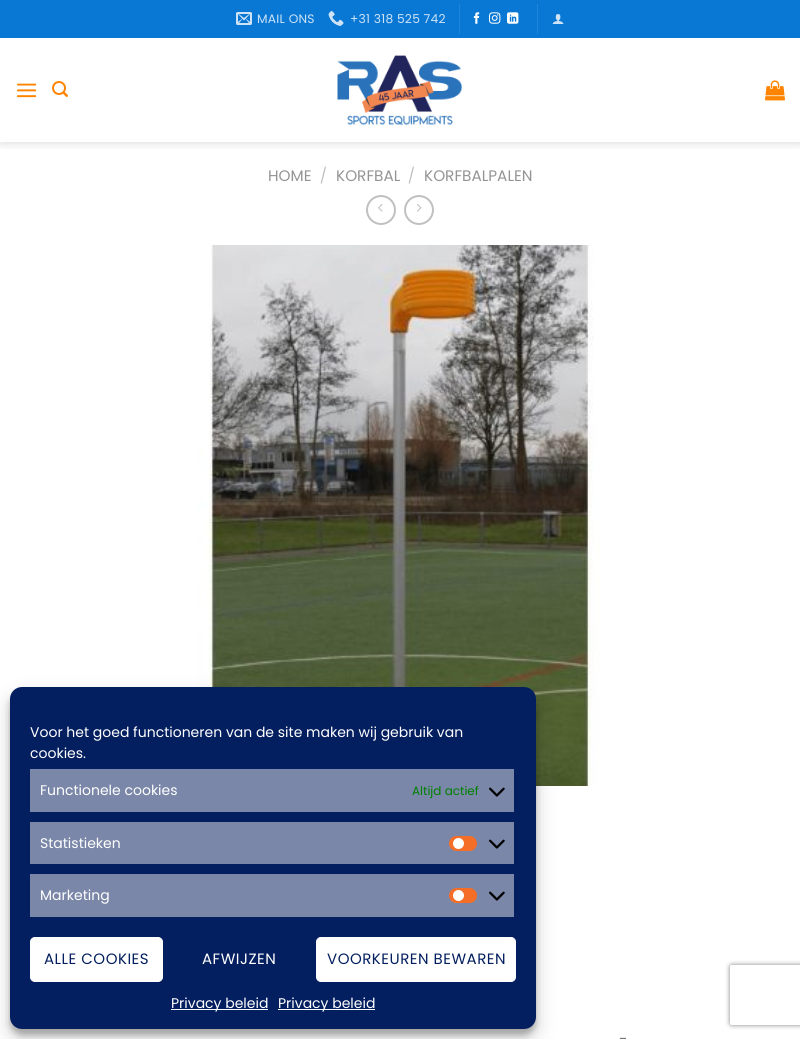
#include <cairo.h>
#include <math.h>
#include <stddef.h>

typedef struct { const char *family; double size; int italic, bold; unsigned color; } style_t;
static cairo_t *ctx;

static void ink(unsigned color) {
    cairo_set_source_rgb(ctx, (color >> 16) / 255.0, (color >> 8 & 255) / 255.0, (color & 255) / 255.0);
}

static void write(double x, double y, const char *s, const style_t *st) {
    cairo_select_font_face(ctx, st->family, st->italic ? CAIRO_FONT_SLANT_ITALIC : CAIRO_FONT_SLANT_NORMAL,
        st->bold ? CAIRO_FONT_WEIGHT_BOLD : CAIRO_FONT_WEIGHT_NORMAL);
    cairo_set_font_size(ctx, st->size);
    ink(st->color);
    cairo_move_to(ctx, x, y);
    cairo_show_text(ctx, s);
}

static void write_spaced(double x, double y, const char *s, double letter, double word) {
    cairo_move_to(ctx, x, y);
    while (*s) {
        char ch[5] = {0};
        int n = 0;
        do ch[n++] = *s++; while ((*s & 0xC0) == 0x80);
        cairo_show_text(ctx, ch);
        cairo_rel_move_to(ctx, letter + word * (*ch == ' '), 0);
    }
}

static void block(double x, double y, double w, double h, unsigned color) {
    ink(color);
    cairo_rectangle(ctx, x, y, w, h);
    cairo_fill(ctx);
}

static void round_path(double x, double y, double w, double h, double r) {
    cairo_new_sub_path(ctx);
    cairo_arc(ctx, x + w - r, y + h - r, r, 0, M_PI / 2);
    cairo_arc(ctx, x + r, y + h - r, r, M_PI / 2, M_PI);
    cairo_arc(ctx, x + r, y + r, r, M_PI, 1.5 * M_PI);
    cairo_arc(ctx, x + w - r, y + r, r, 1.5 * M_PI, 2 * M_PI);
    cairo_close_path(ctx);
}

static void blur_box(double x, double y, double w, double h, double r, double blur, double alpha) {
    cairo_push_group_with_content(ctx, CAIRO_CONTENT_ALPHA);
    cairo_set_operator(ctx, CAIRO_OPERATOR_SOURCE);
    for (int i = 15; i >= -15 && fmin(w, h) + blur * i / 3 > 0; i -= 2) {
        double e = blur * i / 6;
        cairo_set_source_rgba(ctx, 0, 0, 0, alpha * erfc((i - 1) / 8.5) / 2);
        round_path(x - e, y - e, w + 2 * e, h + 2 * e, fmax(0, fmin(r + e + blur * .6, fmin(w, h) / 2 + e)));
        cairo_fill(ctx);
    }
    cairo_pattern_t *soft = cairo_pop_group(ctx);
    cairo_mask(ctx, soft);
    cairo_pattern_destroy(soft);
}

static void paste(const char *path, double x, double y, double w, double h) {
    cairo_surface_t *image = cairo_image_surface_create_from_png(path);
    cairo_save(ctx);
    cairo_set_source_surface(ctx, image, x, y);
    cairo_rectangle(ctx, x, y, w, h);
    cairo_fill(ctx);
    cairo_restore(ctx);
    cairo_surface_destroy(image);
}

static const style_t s1 = {"Poppins", 15.25, 0, 0, 0x949494};
static const style_t s2 = {"Poppins Light", 15.25, 0, 0, 0xb2b2b2};
static const style_t s3 = {"Poppins", 15.25, 0, 0, 0x777777};
static const style_t s4 = {"Poppins", 14, 0, 0, 0xffffff};
static const style_t s5 = {"Poppins", 12, 0, 0, 0x008000};

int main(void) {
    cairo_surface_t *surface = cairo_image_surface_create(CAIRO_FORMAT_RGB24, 800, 1039);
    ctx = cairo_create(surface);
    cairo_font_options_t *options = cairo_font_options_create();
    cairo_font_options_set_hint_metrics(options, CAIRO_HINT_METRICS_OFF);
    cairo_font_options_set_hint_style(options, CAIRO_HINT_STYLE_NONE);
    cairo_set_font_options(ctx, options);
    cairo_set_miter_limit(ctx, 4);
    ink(0xffffff);
    cairo_paint(ctx);
    cairo_save(ctx);
    cairo_rectangle(ctx, 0, 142, 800, 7);
    cairo_clip(ctx);
    ink(0x000000);
    blur_box(1, 1, 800, 142, 0, 5, 0.15);
    cairo_restore(ctx);
    block(0, 0, 800, 38, 0x0977d4);
    paste("pic1.png", 236, 12, 16, 13);
    cairo_select_font_face(ctx, "Poppins", CAIRO_FONT_SLANT_NORMAL, CAIRO_FONT_WEIGHT_NORMAL);
    cairo_set_font_size(ctx, 12.25);
    ink(0xcee4f6);
    write_spaced(257, 23, "MAIL ONS", 0.25, 0);
    paste("pic2.png", 328, 11, 16, 15);
    write_spaced(350, 23, "+31 318 525 742", 0.25, 0);
    block(459, 4, 1, 30, 0x2285d8);
    paste("pic3.png", 473, 12, 7, 12);
    paste("pic4.png", 489, 12, 12, 12);
    paste("pic5.png", 507, 12, 12, 12);
    block(537, 4, 1, 30, 0x2285d8);
    paste("pic6.png", 552, 14, 12, 10);
    paste("pic7.png", 16, 83, 21, 15);
    paste("pic8.png", 52, 81, 16, 16);
    paste("pic9.png", 337, 55, 126, 71);
    paste("pic10.png", 765, 80, 20, 21);
    write(268, 181, "HOME", &s1);
    write(320, 181, "/", &s2);
    write(336, 181, "KORFBAL", &s1);
    write(408, 181, "/", &s2);
    write(424, 181, "KORFBALPALEN", &s1);
    cairo_new_path(ctx);
    cairo_arc(ctx, 381, 210, 14, 0, 2 * M_PI);
    ink(0xc0c0c0);
    cairo_stroke(ctx);
    paste("pic11.png", 378, 204, 5, 8);
    cairo_arc(ctx, 419, 210, 14, 0, 2 * M_PI);
    cairo_stroke(ctx);
    paste("pic12.png", 417, 204, 5, 8);
    paste("pic13.png", 198, 245, 402, 541);
    write(619, 1044, "-", &s3);
    ink(0x000000);
    blur_box(10, 693, 526, 342, 12, 3, 0.23);
    blur_box(10, 697, 526, 342, 12, 10, 0.19);
    ink(0x041f60);
    round_path(10, 687, 526, 342, 12);
    cairo_fill(ctx);
    write(30, 737, "Voor het goed functioneren van de site maken wij gebruik van", &s4);
    write(30, 758, "cookies.", &s4);
    block(30, 769, 484, 43, 0x7a87a8);
    write(40, 795, "Functionele cookies", &s4);
    write(412, 795, "Altijd actief", &s5);
    paste("pic14.png", 489, 787, 16, 10);
    block(30, 822, 484, 42, 0x7a87a8);
    write(40, 848, "Statistieken", &s4);
    ink(0xf56e28);
    round_path(449, 836, 28, 15, 7.5);
    cairo_fill(ctx);
    ink(0xffffff);
    cairo_arc(ctx, 458.5, 843.5, 5.5, 0, 2 * M_PI);
    cairo_fill(ctx);
    paste("pic14.png", 489, 839, 16, 10);
    block(30, 874, 484, 43, 0x7a87a8);
    write(40, 900, "Marketing", &s4);
    ink(0xf56e28);
    round_path(449, 888, 28, 15, 7.5);
    cairo_fill(ctx);
    ink(0xffffff);
    cairo_arc(ctx, 458.5, 895.5, 5.5, 0, 2 * M_PI);
    cairo_fill(ctx);
    paste("pic14.png", 489, 891, 16, 10);
    round_path(30.5, 937.5, 132, 44, 4.5);
    cairo_fill_preserve(ctx);
    cairo_set_line_width(ctx, 1);
    cairo_stroke(ctx);
    cairo_set_font_size(ctx, 15);
    ink(0x041f60);
    write_spaced(44, 964, "ALLE COOKIES", 0.5, 0);
    ink(0xffffff);
    write_spaced(202, 964, "AFWIJZEN", 0.5, 0);
    round_path(316.5, 937.5, 199, 44, 4.5);
    cairo_fill_preserve(ctx);
    cairo_stroke(ctx);
    ink(0x041f60);
    write_spaced(327, 964, "VOORKEUREN BEWAREN", 0.5, 0);
    block(171, 1009, 97, 1, 0xffffff);
    write(171, 1008, "Privacy beleid", &s4);
    block(278, 1009, 97, 1, 0xffffff);
    write(278, 1008, "Privacy beleid", &s4);
    cairo_save(ctx);
    cairo_set_fill_rule(ctx, CAIRO_FILL_RULE_EVEN_ODD);
    cairo_new_path(ctx);
    cairo_move_to(ctx, 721, 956);
    cairo_line_to(ctx, 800, 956);
    cairo_line_to(ctx, 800, 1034);
    cairo_line_to(ctx, 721, 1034);
    cairo_close_path(ctx);
    cairo_move_to(ctx, 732, 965);
    cairo_line_to(ctx, 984, 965);
    cairo_curve_to(ctx, 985, 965, 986, 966, 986, 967);
    cairo_line_to(ctx, 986, 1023);
    cairo_curve_to(ctx, 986, 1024, 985, 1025, 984, 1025);
    cairo_line_to(ctx, 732, 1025);
    cairo_curve_to(ctx, 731, 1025, 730, 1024, 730, 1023);
    cairo_line_to(ctx, 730, 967);
    cairo_curve_to(ctx, 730, 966, 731, 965, 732, 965);
    cairo_close_path(ctx);
    cairo_clip(ctx);
    ink(0x808080);
    blur_box(730, 965, 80, 60, 2, 2.5, 1);
    cairo_restore(ctx);
    cairo_surface_write_to_png(surface, "screenshot.png");
    cairo_font_options_destroy(options);
    cairo_destroy(ctx);
    cairo_surface_destroy(surface);
    return 0;
}
